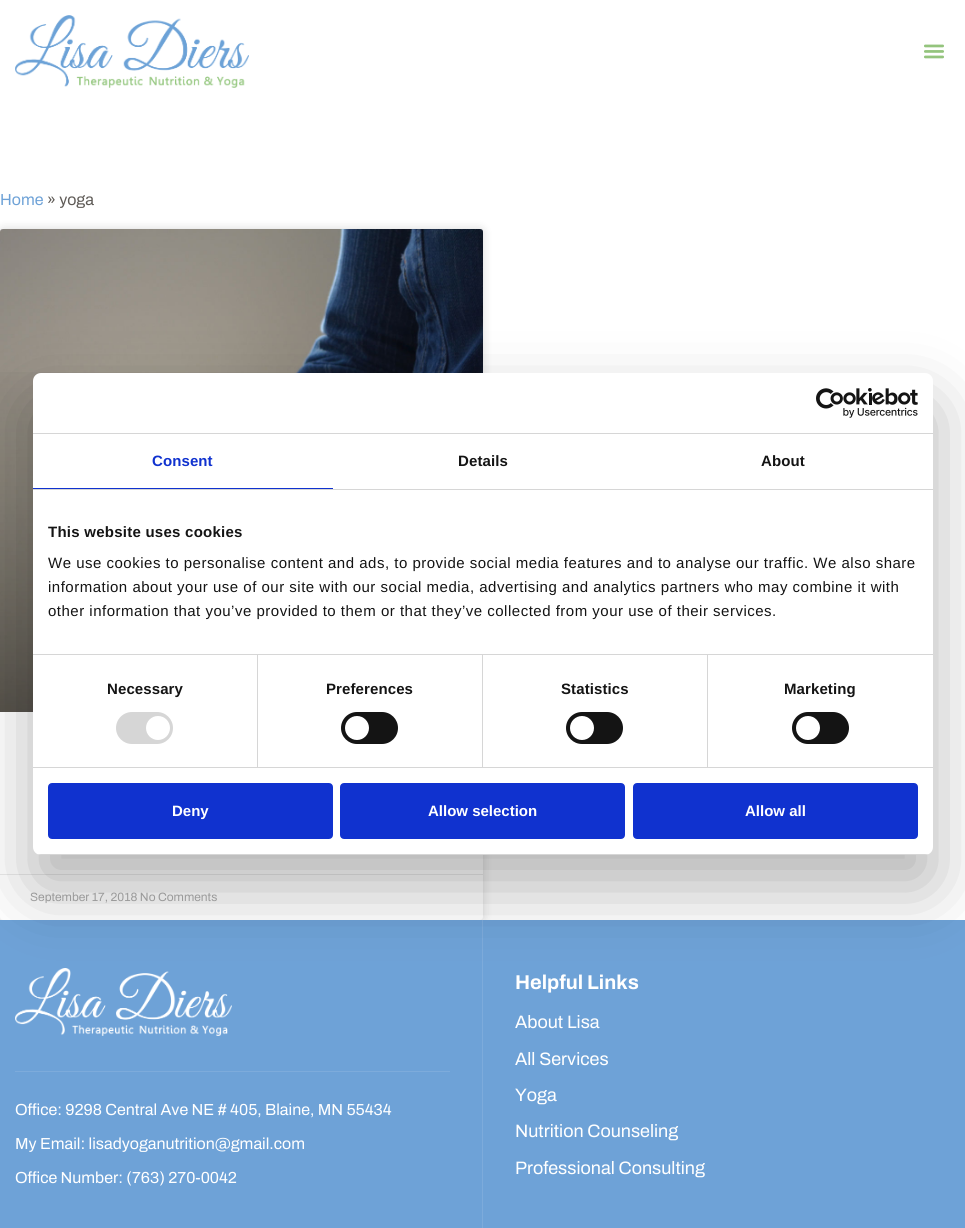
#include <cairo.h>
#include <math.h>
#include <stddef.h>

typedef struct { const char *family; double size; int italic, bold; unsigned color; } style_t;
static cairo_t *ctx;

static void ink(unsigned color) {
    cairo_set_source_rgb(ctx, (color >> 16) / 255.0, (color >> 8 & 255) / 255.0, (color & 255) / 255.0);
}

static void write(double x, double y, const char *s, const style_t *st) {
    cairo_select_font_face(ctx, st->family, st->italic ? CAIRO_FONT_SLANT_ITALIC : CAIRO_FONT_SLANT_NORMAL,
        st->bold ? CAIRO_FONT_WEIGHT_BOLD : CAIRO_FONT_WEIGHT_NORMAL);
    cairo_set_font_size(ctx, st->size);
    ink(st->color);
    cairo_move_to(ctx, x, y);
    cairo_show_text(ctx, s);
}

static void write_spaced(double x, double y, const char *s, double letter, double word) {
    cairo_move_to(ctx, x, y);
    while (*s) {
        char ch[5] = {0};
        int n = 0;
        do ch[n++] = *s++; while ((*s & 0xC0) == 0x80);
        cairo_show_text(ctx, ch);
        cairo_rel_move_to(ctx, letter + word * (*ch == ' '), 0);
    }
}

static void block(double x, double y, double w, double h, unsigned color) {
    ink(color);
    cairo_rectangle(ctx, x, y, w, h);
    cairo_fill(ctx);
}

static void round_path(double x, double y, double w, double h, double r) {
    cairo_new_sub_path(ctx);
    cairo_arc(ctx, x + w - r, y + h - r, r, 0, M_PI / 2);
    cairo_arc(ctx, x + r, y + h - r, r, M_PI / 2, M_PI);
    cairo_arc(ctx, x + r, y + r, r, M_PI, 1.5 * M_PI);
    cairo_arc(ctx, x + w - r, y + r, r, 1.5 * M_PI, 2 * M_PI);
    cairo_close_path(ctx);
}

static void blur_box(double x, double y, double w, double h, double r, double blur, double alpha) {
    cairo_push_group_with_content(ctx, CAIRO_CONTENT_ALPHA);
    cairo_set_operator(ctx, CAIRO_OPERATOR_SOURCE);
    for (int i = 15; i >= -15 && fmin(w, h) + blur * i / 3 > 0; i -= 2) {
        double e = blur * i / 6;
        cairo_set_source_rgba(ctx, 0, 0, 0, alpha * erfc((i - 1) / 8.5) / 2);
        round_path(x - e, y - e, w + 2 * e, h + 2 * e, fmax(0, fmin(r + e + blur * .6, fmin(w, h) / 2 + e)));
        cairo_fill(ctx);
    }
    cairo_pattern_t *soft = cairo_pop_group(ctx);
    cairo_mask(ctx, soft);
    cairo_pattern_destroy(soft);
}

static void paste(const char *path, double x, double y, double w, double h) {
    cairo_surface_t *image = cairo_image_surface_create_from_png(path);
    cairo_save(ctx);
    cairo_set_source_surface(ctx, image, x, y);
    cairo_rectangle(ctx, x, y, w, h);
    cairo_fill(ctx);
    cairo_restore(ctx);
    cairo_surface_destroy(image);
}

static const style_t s1 = {"Archivo", 16, 0, 0, 0x6ea2d7};
static const style_t s2 = {"Archivo", 16, 0, 0, 0x5e5a56};
static const style_t s3 = {"Archivo", 12, 0, 0, 0xadadad};
static const style_t s4 = {"Liberation Sans", 15, 0, 1, 0xffffff};
static const style_t s5 = {"Archivo", 16, 0, 0, 0xffffff};
static const style_t s6 = {"Archivo", 20, 0, 1, 0xffffff};
static const style_t s7 = {"Archivo", 18, 0, 0, 0xffffff};

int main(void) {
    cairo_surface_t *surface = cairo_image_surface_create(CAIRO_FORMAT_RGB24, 965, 1228);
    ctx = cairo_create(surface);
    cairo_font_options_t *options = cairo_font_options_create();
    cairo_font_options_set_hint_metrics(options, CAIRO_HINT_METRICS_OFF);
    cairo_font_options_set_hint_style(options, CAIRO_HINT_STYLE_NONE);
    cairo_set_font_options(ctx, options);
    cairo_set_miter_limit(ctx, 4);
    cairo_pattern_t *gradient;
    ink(0xffffff);
    cairo_paint(ctx);
    paste("pic1.png", 15, 15, 234, 73);
    paste("pic2.png", 924, 44, 20, 15);
    write(0, 205, "Home", &s1);
    write(47, 205, "» yoga", &s2);
    ink(0x000000);
    blur_box(0, 229, 483, 691, 3, 5, 0.15);
    ink(0xffffff);
    round_path(0, 229, 483, 691, 3);
    cairo_fill(ctx);
    paste("pic3.png", 0, 229, 483, 483);
    gradient = cairo_pattern_create_linear(242, 712, 242, 229);
    cairo_pattern_add_color_stop_rgba(gradient, 0, 0, 0, 0, 0.35);
    cairo_pattern_add_color_stop_rgba(gradient, 0.75, 0, 0, 0, 0);
    cairo_set_source(ctx, gradient);
    cairo_pattern_destroy(gradient);
    cairo_rectangle(ctx, 0, 372, 483, 340);
    cairo_fill(ctx);
    block(0, 874, 483, 1, 0xeaeaea);
    write(30, 901, "September 17, 2018 No Comments", &s3);
    block(0, 920, 965, 308, 0x6ea2d7);
    block(482, 920, 1, 308, 0x7dabdb);
    paste("pic5.png", 15, 968, 217, 68);
    ink(0x000000);
    blur_box(33, 405, 900, 482, 8, 34, 0.3);
    ink(0xffffff);
    round_path(33, 373, 900, 482, 8);
    cairo_fill(ctx);
    block(33, 433, 900, 1, 0xd6d6d6);
    paste("pic4.png", 816, 388, 102, 30);
    block(33, 489, 900, 1, 0xd6d6d6);
    block(33, 488, 300, 1, 0x1032cf);
    cairo_select_font_face(ctx, "Liberation Sans", CAIRO_FONT_SLANT_NORMAL, CAIRO_FONT_WEIGHT_BOLD);
    cairo_set_font_size(ctx, 15);
    write_spaced(152, 466, "Consent", 0.1, 0);
    ink(0x141414);
    write_spaced(458, 466, "Details", 0.1, 0);
    write_spaced(761, 466, "About", 0.1, 0);
    block(33, 654, 900, 1, 0xd6d6d6);
    ink(0x141414);
    write_spaced(48, 537, "This website uses cookies", 0.25, 0);
    cairo_select_font_face(ctx, "Liberation Sans", CAIRO_FONT_SLANT_NORMAL, CAIRO_FONT_WEIGHT_NORMAL);
    write_spaced(48, 568, "We use cookies to personalise content and ads, to provide social media features and to analyse our traffic. We also share", 0.5, 0);
    write_spaced(48, 592, "information about your use of our site with our social media, advertising and analytics partners who may combine it with", 0.5, 0);
    write_spaced(48, 616, "other information that you’ve provided to them or that they’ve collected from your use of their services.", 0.5, 0);
    block(33, 767, 900, 1, 0xd6d6d6);
    block(257, 655, 1, 112, 0xd6d6d6);
    cairo_select_font_face(ctx, "Liberation Sans", CAIRO_FONT_SLANT_NORMAL, CAIRO_FONT_WEIGHT_BOLD);
    ink(0x141414);
    write_spaced(107, 694, "Necessary", 0.1, 0);
    ink(0xd6d6d6);
    round_path(116, 712, 57, 32, 16);
    cairo_fill(ctx);
    ink(0xffffff);
    cairo_arc(ctx, 158, 728, 12, 0, 2 * M_PI);
    cairo_fill(ctx);
    block(482, 655, 1, 112, 0xd6d6d6);
    ink(0x141414);
    write_spaced(326, 694, "Preferences", 0.1, 0);
    round_path(341, 712, 57, 32, 16);
    cairo_fill(ctx);
    ink(0xffffff);
    cairo_arc(ctx, 357, 728, 12, 0, 2 * M_PI);
    cairo_fill(ctx);
    block(707, 655, 1, 112, 0xd6d6d6);
    ink(0x141414);
    write_spaced(561, 694, "Statistics", 0.1, 0);
    round_path(566, 712, 57, 32, 16);
    cairo_fill(ctx);
    ink(0xffffff);
    cairo_arc(ctx, 582, 728, 12, 0, 2 * M_PI);
    cairo_fill(ctx);
    ink(0x141414);
    write_spaced(784, 694, "Marketing", 0.1, 0);
    round_path(792, 712, 57, 32, 16);
    cairo_fill(ctx);
    ink(0xffffff);
    cairo_arc(ctx, 808, 728, 12, 0, 2 * M_PI);
    cairo_fill(ctx);
    cairo_save(ctx);
    round_path(33, 373, 900, 482, 8);
    cairo_clip(ctx);
    block(33, 854, 900, 1, 0xd6d6d6);
    cairo_restore(ctx);
    ink(0x1032cf);
    round_path(49, 784, 283, 54, 3);
    cairo_fill_preserve(ctx);
    cairo_stroke(ctx);
    write(172, 816, "Deny", &s4);
    ink(0x1032cf);
    round_path(341, 784, 283, 54, 3);
    cairo_fill_preserve(ctx);
    cairo_stroke(ctx);
    write(428, 816, "Allow selection", &s4);
    ink(0x1032cf);
    round_path(634, 784, 283, 54, 3);
    cairo_fill_preserve(ctx);
    cairo_stroke(ctx);
    write(745, 816, "Allow all", &s4);
    block(15, 1071, 435, 1, 0x7dabdb);
    write(15, 1115, "Office: 9298 Central Ave NE # 405, Blaine, MN 55434", &s5);
    write(15, 1149, "My Email: lisadyoganutrition@gmail.com", &s5);
    write(15, 1183, "Office Number: (763) 270-0042", &s5);
    write(515, 989, "Helpful Links", &s6);
    write(515, 1028, "About Lisa", &s7);
    write(515, 1065, "All Services", &s7);
    write(515, 1101, "Yoga", &s7);
    write(515, 1137, "Nutrition Counseling", &s7);
    write(515, 1174, "Professional Consulting", &s7);
    cairo_surface_write_to_png(surface, "screenshot.png");
    cairo_font_options_destroy(options);
    cairo_destroy(ctx);
    cairo_surface_destroy(surface);
    return 0;
}
